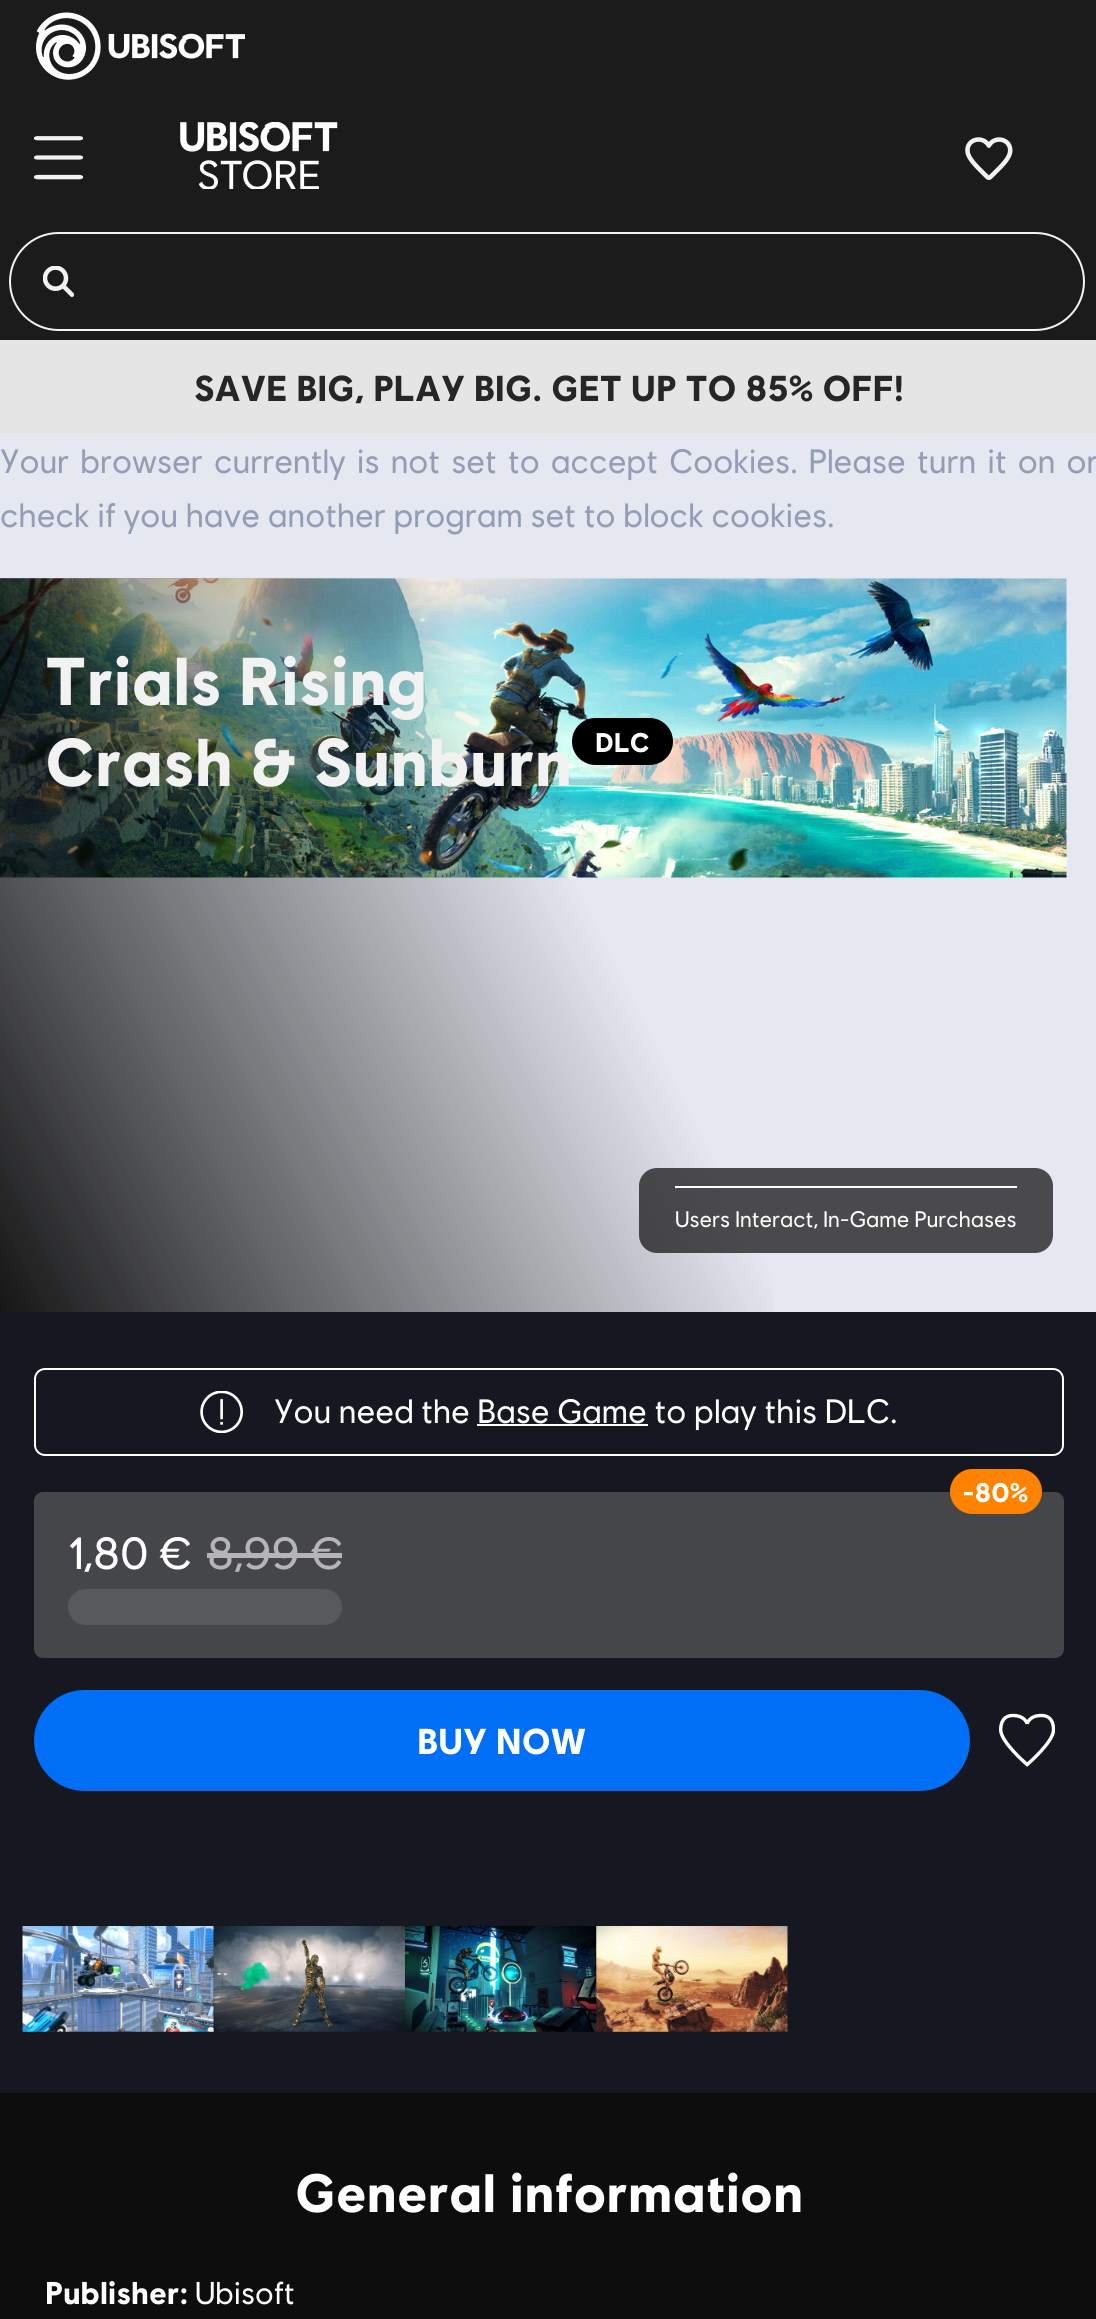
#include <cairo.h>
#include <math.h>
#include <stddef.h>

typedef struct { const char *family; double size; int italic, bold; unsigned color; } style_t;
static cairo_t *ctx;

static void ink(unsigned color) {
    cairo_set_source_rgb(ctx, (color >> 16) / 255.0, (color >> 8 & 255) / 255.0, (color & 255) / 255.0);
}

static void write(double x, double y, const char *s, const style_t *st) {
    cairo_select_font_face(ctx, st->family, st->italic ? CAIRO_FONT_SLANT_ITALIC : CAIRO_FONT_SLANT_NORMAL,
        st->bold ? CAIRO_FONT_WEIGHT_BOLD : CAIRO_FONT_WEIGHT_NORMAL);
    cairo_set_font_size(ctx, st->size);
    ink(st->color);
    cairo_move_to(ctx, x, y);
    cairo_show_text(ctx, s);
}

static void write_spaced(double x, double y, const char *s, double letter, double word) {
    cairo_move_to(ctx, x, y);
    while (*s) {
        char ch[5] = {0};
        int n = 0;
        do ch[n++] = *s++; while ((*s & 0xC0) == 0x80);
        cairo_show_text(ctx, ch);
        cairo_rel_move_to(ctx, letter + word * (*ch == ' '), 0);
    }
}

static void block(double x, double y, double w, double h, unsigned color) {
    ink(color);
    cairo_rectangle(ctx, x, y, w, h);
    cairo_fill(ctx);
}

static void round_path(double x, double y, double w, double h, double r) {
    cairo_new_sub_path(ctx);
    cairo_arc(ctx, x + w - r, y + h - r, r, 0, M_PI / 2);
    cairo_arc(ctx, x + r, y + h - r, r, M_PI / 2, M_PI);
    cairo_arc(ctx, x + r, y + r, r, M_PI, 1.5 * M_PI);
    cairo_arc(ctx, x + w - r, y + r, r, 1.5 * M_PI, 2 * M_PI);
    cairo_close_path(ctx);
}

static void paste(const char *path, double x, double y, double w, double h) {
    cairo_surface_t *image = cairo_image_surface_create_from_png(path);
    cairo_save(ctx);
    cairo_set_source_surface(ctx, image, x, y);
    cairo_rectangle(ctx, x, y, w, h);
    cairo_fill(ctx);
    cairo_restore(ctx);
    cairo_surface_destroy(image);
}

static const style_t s1 = {"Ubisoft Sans", 36, 0, 1, 0x262626};
static const style_t s2 = {"Ubisoft Sans", 33.75, 0, 0, 0x929db6};
static const style_t s3 = {"Ubisoft Sans", 67.5, 0, 1, 0xf2f2f2};
static const style_t s4 = {"Ubisoft Sans", 27, 0, 1, 0xffffff};
static const style_t s5 = {"Ubisoft Sans", 22.5, 0, 0, 0xffffff};
static const style_t s6 = {"Ubisoft Sans", 33.75, 0, 0, 0xffffff};
static const style_t s7 = {"Ubisoft Sans", 45, 0, 0, 0xffffff};
static const style_t s8 = {"Ubisoft Sans", 45, 0, 0, 0xb5b5b5};
static const style_t s9 = {"Ubisoft Sans", 36, 0, 1, 0xffffff};
static const style_t s10 = {"Ubisoft Sans", 54, 0, 1, 0xffffff};
static const style_t s11 = {"Ubisoft Sans", 31.5, 0, 1, 0xffffff};
static const style_t s12 = {"Ubisoft Sans", 31.5, 0, 0, 0xffffff};

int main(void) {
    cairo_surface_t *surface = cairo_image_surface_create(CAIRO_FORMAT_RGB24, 1096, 2319);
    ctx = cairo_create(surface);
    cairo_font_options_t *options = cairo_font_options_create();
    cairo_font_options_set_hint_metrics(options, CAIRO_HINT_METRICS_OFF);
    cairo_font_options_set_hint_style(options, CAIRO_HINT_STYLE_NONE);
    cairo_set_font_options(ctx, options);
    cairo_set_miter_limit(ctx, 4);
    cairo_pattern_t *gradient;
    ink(0xe5e8f0);
    cairo_paint(ctx);
    block(0, 0, 1096, 340, 0x1b1b1b);
    paste("pic1.png", 36, 12, 209, 68);
    paste("pic2.png", 34, 136, 49, 44);
    paste("pic3.png", 180, 122, 158, 67);
    paste("pic4.png", 965, 137, 48, 43);
    round_path(10, 233, 1074, 97, 48.5);
    ink(0xf2f2f2);
    cairo_stroke(ctx);
    paste("pic5.png", 43, 266, 31, 31);
    block(0, 340, 1096, 94, 0xe5e5e5);
    write(194, 401, "SAVE BIG, PLAY BIG. GET UP TO 85% OFF!", &s1);
    cairo_select_font_face(ctx, "Ubisoft Sans", CAIRO_FONT_SLANT_NORMAL, CAIRO_FONT_WEIGHT_NORMAL);
    cairo_set_font_size(ctx, 33.75);
    ink(0x929db6);
    write_spaced(0, 473, "Your browser currently is not set to accept Cookies. Please turn it on or", 0, 3.4);
    write(0, 527, "check if you have another program set to block cookies.", &s2);
    paste("pic6.png", 0, 578, 1067, 300);
    gradient = cairo_pattern_create_linear(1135, 652, -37, 1238);
    cairo_pattern_add_color_stop_rgba(gradient, 0.46, 0.051, 0.051, 0.051, 0);
    cairo_pattern_add_color_stop_rgba(gradient, 1, 0.051, 0.051, 0.051, 0.96);
    cairo_set_source(ctx, gradient);
    cairo_pattern_destroy(gradient);
    cairo_rectangle(ctx, 0, 578, 773, 734);
    cairo_fill(ctx);
    write(45, 705, "Trials Rising", &s3);
    write(45, 786, "Crash & Sunburn", &s3);
    ink(0x000000);
    round_path(572, 718, 101, 47, 23.5);
    cairo_fill(ctx);
    write(595, 752, "DLC", &s4);
    cairo_set_source_rgba(ctx, 0.141, 0.141, 0.141, 0.8);
    round_path(639, 1168, 414, 85, 18);
    cairo_fill(ctx);
    block(675, 1186, 342, 2, 0xffffff);
    write(675, 1227, "Users Interact, In-Game Purchases", &s5);
    block(0, 1312, 1096, 781, 0x151820);
    round_path(35, 1369, 1028, 86, 10);
    ink(0xffffff);
    cairo_stroke(ctx);
    paste("pic7.png", 200, 1391, 43, 42);
    write(274, 1423, "You need the Base Game to play this DLC.", &s6);
    block(477, 1424, 171, 2, 0xffffff);
    ink(0x45464a);
    round_path(34, 1492, 1030, 166, 9);
    cairo_fill(ctx);
    ink(0xff8300);
    round_path(950, 1469, 92, 45, 22.5);
    cairo_fill(ctx);
    write(962, 1502, "-80%", &s4);
    write(68, 1569, "1,80 €", &s7);
    write(207, 1569, "8,99 €", &s8);
    block(207, 1553, 135, 5, 0xb5b5b5);
    ink(0x58595c);
    round_path(68, 1589, 274, 36, 18);
    cairo_fill(ctx);
    ink(0x006ef5);
    round_path(36.5, 1692.5, 931, 96, 48);
    cairo_fill_preserve(ctx);
    cairo_set_line_width(ctx, 5);
    cairo_stroke(ctx);
    write(417, 1754, "BUY NOW", &s9);
    paste("pic8.png", 999, 1713, 56, 54);
    paste("pic9.png", 22, 1926, 192, 106);
    paste("pic10.png", 213, 1926, 192, 106);
    paste("pic11.png", 405, 1926, 192, 106);
    paste("pic12.png", 596, 1926, 192, 106);
    block(0, 2093, 1096, 226, 0x0d0d0d);
    write(295, 2212, "General information", &s10);
    write(45, 2304, "Publisher:", &s11);
    write(195, 2304, "Ubisoft", &s12);
    cairo_surface_write_to_png(surface, "screenshot.png");
    cairo_font_options_destroy(options);
    cairo_destroy(ctx);
    cairo_surface_destroy(surface);
    return 0;
}
